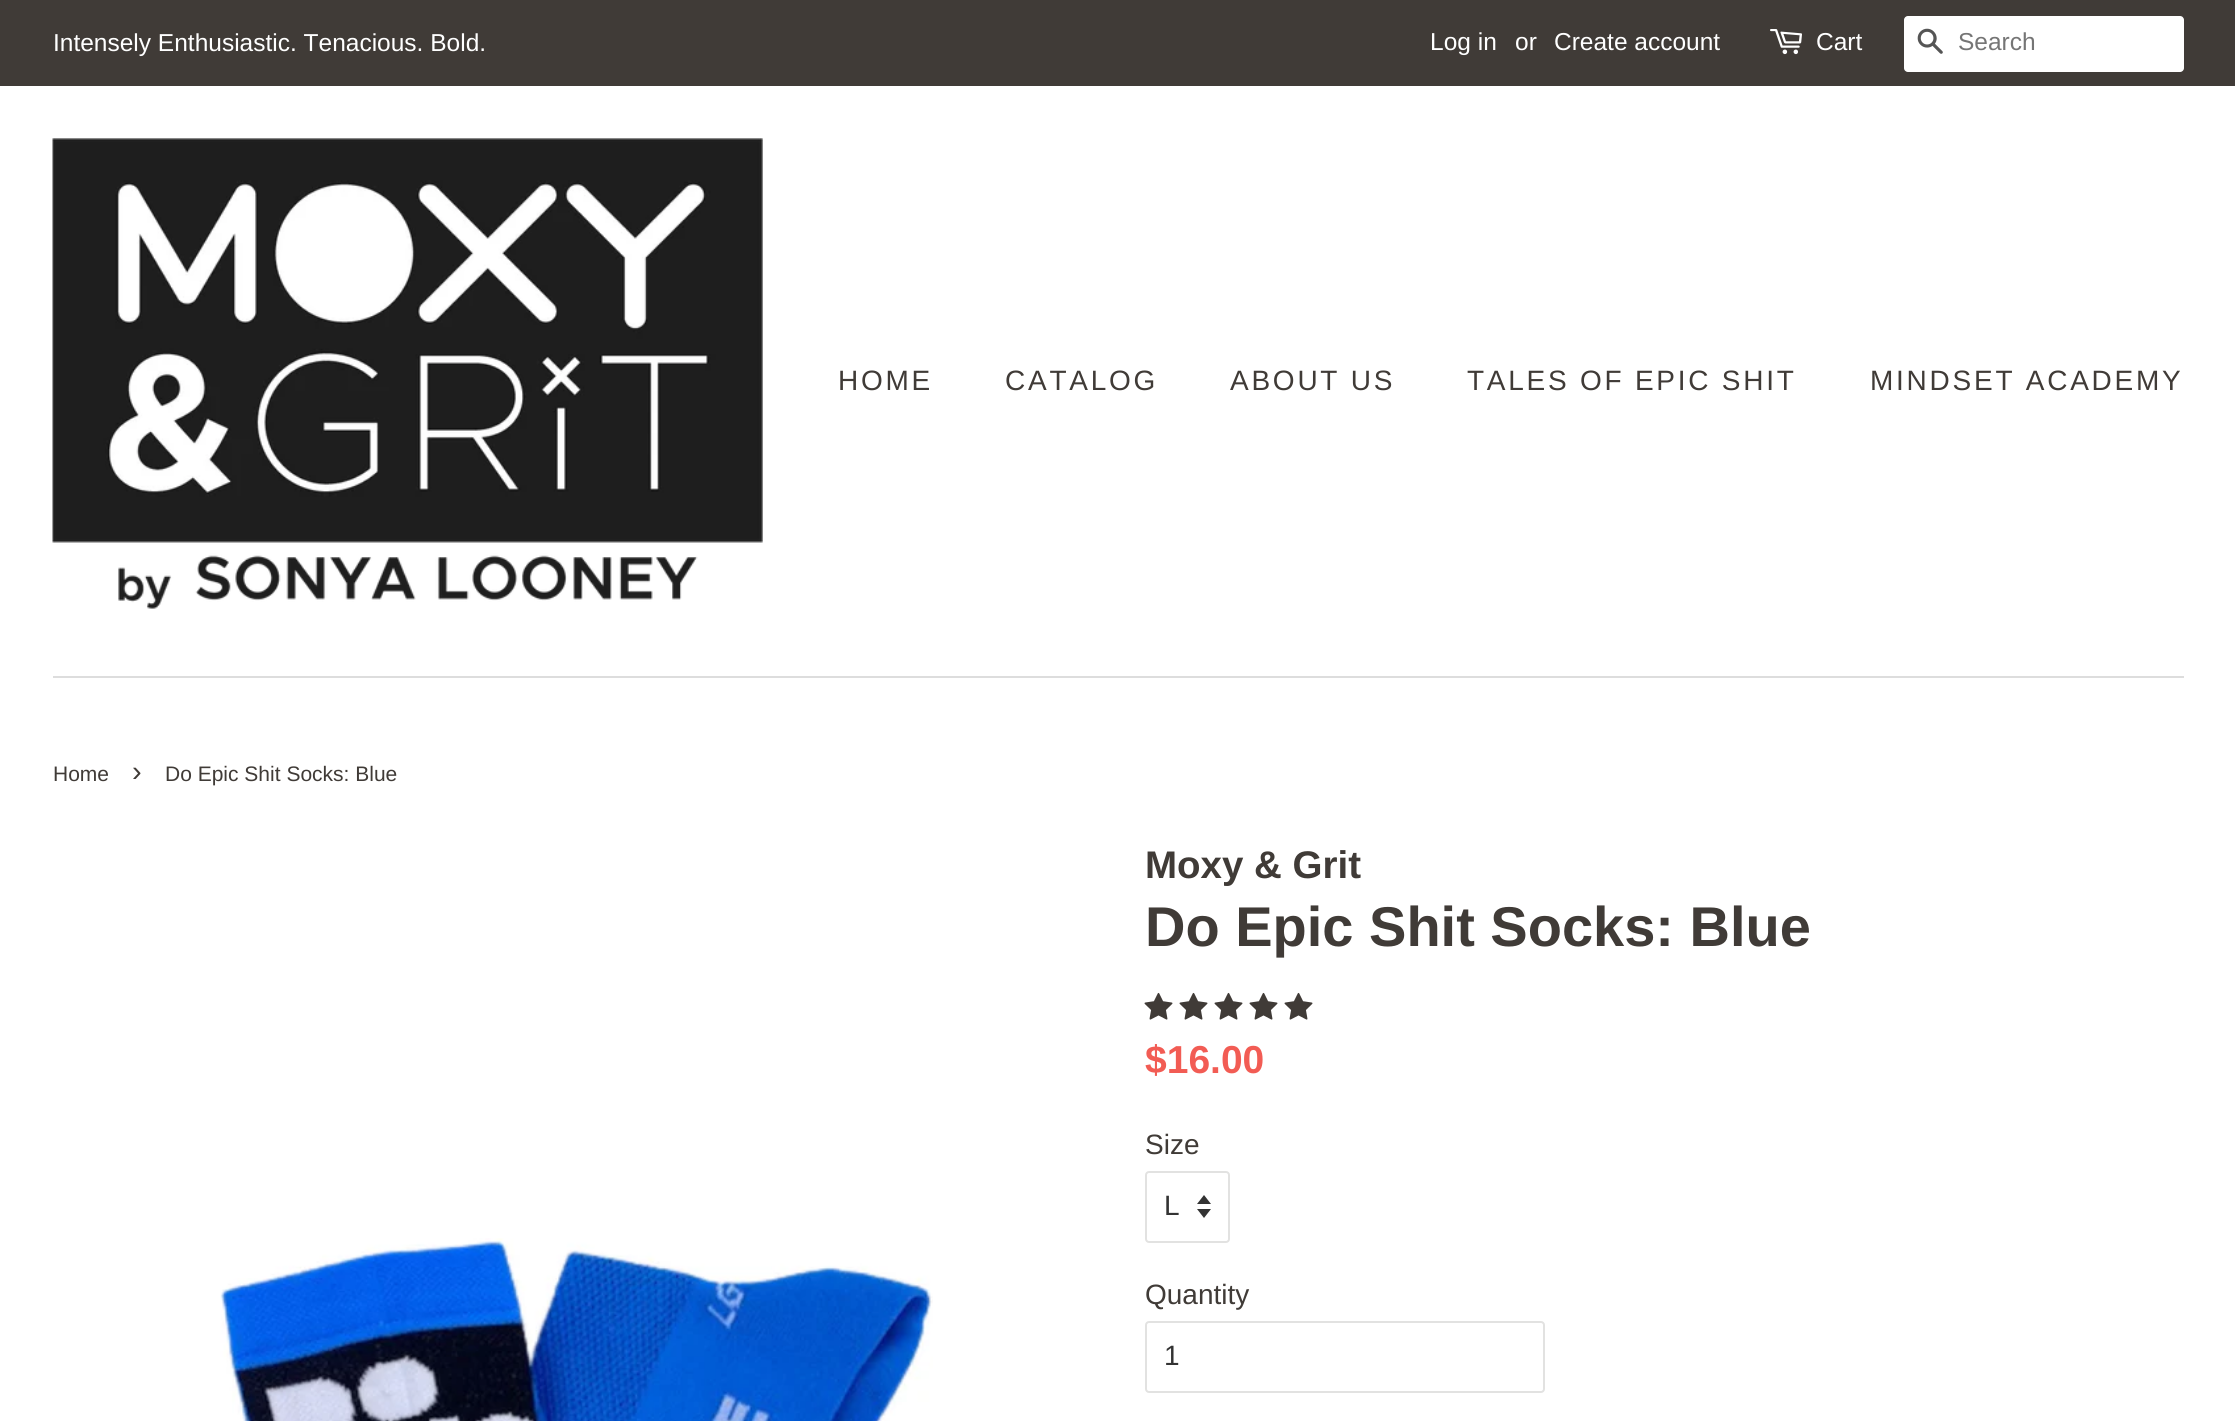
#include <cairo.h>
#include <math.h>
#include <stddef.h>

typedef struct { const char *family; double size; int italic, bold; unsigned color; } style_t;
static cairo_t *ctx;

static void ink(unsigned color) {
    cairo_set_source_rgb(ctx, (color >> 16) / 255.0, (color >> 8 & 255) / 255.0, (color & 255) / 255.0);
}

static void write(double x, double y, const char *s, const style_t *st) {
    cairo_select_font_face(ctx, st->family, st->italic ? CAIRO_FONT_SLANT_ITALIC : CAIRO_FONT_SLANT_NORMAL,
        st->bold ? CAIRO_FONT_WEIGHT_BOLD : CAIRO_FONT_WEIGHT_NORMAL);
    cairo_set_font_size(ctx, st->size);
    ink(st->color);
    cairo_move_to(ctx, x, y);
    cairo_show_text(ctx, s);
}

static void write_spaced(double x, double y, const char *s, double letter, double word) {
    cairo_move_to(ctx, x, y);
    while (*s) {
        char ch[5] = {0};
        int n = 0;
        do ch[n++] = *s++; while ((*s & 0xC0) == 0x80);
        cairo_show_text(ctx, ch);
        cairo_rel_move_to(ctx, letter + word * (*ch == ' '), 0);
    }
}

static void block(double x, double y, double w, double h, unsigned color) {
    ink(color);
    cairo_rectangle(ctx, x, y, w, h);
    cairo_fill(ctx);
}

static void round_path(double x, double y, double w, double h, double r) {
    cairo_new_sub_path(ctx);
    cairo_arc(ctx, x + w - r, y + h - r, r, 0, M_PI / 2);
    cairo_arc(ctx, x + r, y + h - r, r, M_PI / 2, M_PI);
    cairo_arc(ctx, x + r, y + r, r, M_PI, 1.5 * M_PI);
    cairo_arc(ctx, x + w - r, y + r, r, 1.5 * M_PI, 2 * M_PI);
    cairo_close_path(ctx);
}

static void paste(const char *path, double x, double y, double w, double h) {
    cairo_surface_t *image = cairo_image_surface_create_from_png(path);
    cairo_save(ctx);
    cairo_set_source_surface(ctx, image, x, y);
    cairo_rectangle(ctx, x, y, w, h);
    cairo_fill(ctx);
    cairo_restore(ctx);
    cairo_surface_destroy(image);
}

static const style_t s1 = {"Liberation Sans", 24.5, 0, 0, 0xffffff};
static const style_t s2 = {"Liberation Sans", 24.5, 0, 0, 0x757575};
static const style_t s3 = {"Liberation Sans", 21, 0, 0, 0x403b37};
static const style_t s4 = {"Liberation Sans", 29, 0, 0, 0x403b37};
static const style_t s5 = {"Liberation Sans", 38.5, 0, 1, 0x403b37};
static const style_t s6 = {"Liberation Sans", 56, 0, 1, 0x403b37};
static const style_t s7 = {"Liberation Sans", 39, 0, 1, 0xf25c54};
static const style_t s8 = {"Liberation Sans", 28, 0, 0, 0x403b37};
static const style_t s9 = {"Liberation Sans", 28, 0, 0, 0x333333};

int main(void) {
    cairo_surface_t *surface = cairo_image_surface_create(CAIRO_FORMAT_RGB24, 2235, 1421);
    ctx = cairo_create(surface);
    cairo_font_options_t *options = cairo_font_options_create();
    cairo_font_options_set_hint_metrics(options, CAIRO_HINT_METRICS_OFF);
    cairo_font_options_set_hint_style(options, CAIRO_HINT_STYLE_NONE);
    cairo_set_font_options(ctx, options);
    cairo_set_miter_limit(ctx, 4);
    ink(0xffffff);
    cairo_paint(ctx);
    block(0, 0, 2235, 86, 0x403b37);
    write(53, 51, "Intensely Enthusiastic. Tenacious. Bold.", &s1);
    write(1430, 50, "Log in", &s1);
    write(1515, 50, "or", &s1);
    write(1554, 50, "Create account", &s1);
    paste("pic1.png", 1770, 29, 32, 26);
    write(1816, 50, "Cart", &s1);
    round_path(1904, 16, 280, 56, 4);
    cairo_fill(ctx);
    paste("pic2.png", 1917, 28, 26, 26);
    write(1958, 50, "Search", &s2);
    block(53, 676, 2131, 2, 0xdddddd);
    paste("pic3.png", 52, 138, 711, 471);
    cairo_set_font_size(ctx, 28);
    ink(0x403b37);
    write_spaced(838, 390, "HOME", 2.75, 0);
    write_spaced(1005, 390, "CATALOG", 2.75, 0);
    write_spaced(1230, 390, "ABOUT US", 2.75, 0);
    write_spaced(1467, 390, "TALES OF EPIC SHIT", 2.75, 0);
    write_spaced(1870, 390, "MINDSET ACADEMY", 2.75, 0);
    write(53, 781, "Home", &s3);
    write(132, 781, "›", &s4);
    write(165, 781, "Do Epic Shit Socks: Blue", &s3);
    paste("pic4.png", 220, 1238, 713, 183);
    write(1145, 878, "Moxy & Grit", &s5);
    write(1145, 946, "Do Epic Shit Socks: Blue", &s6);
    paste("pic5.png", 1144, 992, 29, 28);
    paste("pic5.png", 1179, 992, 29, 28);
    paste("pic5.png", 1214, 992, 29, 28);
    paste("pic5.png", 1249, 992, 29, 28);
    paste("pic5.png", 1284, 992, 29, 28);
    write(1145, 1073, "$16.00", &s7);
    write(1145, 1154, "Size", &s8);
    ink(0x333333);
    cairo_new_path(ctx);
    cairo_move_to(ctx, 1197, 1209);
    cairo_line_to(ctx, 1204, 1218);
    cairo_line_to(ctx, 1211, 1209);
    cairo_close_path(ctx);
    cairo_move_to(ctx, 1204, 1195);
    cairo_line_to(ctx, 1197, 1204);
    cairo_line_to(ctx, 1211, 1204);
    cairo_close_path(ctx);
    cairo_fill(ctx);
    round_path(1146, 1172, 83, 70, 3);
    ink(0xe2e2e1);
    cairo_stroke(ctx);
    write(1164, 1215, "L", &s9);
    write(1145, 1304, "Quantity", &s8);
    round_path(1146, 1322, 398, 70, 3);
    ink(0xe2e2e1);
    cairo_stroke(ctx);
    write(1164, 1365, "1", &s9);
    cairo_surface_write_to_png(surface, "screenshot.png");
    cairo_font_options_destroy(options);
    cairo_destroy(ctx);
    cairo_surface_destroy(surface);
    return 0;
}
